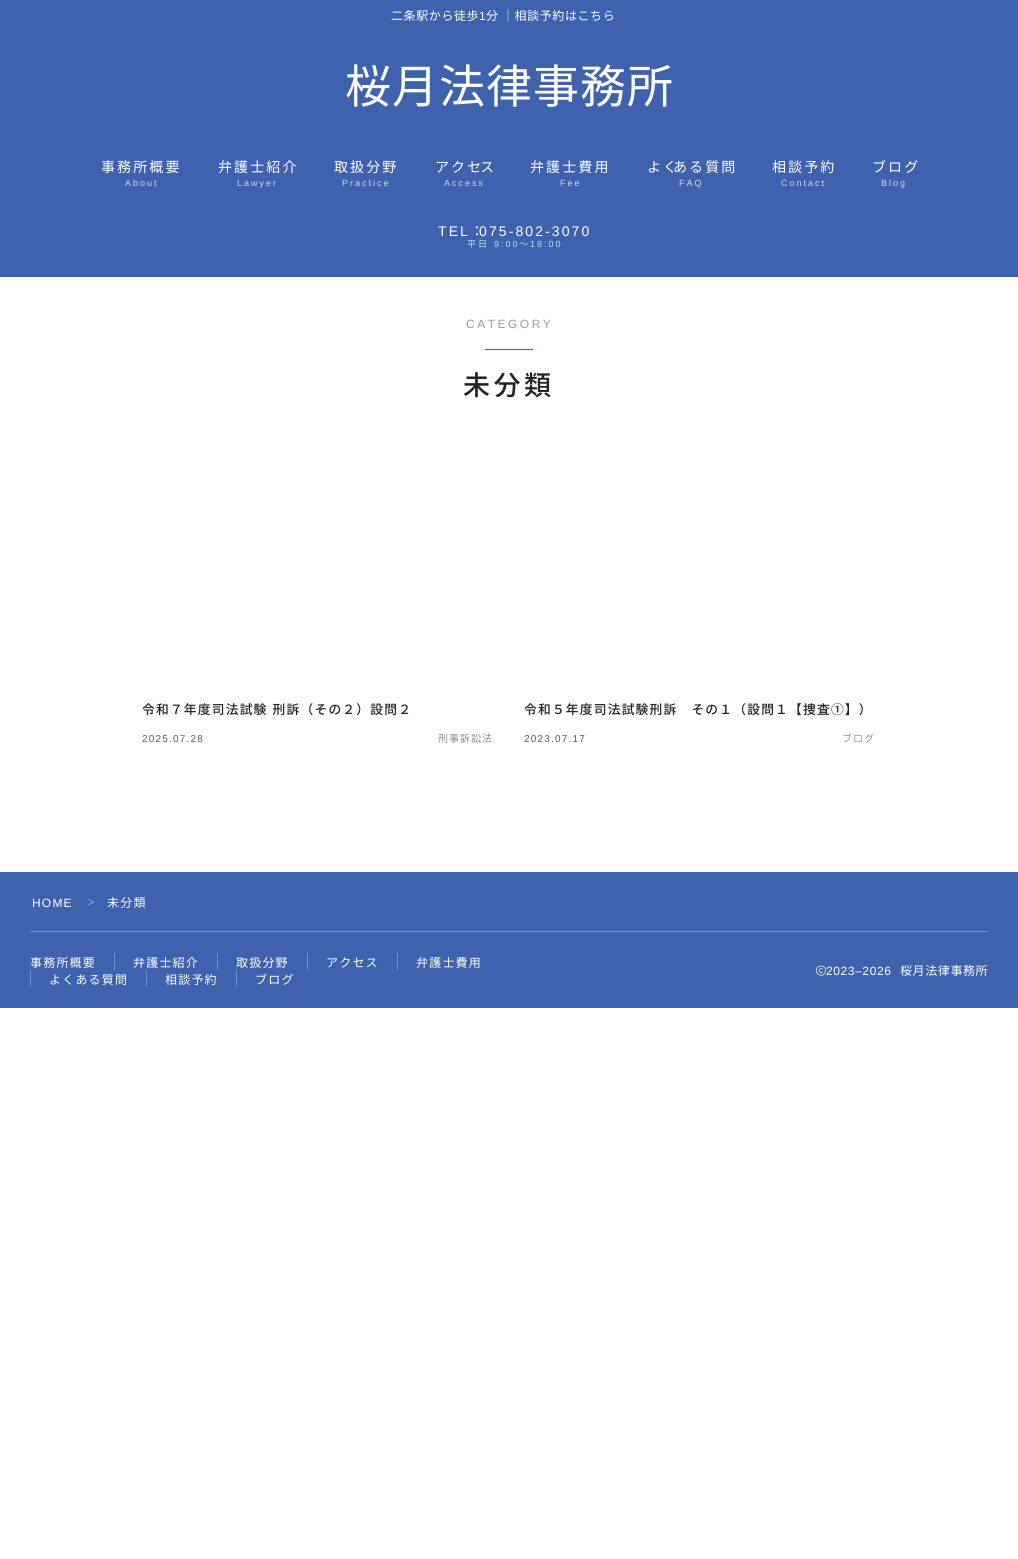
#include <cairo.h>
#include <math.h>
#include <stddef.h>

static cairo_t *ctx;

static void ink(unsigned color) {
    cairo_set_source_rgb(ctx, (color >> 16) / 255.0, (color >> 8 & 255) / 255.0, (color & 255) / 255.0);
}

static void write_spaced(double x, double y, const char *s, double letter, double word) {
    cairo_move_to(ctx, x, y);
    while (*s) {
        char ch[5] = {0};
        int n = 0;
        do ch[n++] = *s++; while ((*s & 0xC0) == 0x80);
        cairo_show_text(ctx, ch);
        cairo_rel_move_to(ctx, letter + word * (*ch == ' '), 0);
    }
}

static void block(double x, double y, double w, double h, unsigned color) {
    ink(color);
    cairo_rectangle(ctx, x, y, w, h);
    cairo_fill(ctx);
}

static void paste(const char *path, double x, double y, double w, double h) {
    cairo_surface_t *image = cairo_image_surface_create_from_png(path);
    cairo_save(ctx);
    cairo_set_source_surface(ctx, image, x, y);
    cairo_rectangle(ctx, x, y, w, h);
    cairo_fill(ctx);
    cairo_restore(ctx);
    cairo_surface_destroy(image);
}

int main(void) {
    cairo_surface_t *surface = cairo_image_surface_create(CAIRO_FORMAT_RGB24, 1018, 1559);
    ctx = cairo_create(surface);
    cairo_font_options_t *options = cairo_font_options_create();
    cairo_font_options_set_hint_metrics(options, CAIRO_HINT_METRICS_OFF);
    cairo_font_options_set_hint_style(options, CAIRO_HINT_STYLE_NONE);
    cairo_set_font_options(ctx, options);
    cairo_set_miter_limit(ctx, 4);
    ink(0xffffff);
    cairo_paint(ctx);
    block(0, 0, 1018, 277, 0x3e62ad);
    cairo_select_font_face(ctx, "Noto Sans CJK JP", CAIRO_FONT_SLANT_NORMAL, CAIRO_FONT_WEIGHT_NORMAL);
    cairo_set_font_size(ctx, 12);
    ink(0xffffff);
    write_spaced(391, 20, "二条駅から徒歩", 0.6, 0);
    cairo_select_font_face(ctx, "Liberation Sans", CAIRO_FONT_SLANT_NORMAL, CAIRO_FONT_WEIGHT_NORMAL);
    write_spaced(479, 20, "1", 0.6, 0);
    cairo_select_font_face(ctx, "Noto Sans CJK JP", CAIRO_FONT_SLANT_NORMAL, CAIRO_FONT_WEIGHT_NORMAL);
    write_spaced(486, 20, "分 ｜相談予約はこちら", 0.6, 0);
    cairo_set_font_size(ctx, 46);
    write_spaced(345, 103, "桜月法律事務所", 1, 0);
    cairo_set_font_size(ctx, 14);
    write_spaced(101, 172, "事務所概要", 2.1, 0);
    cairo_select_font_face(ctx, "Liberation Sans", CAIRO_FONT_SLANT_NORMAL, CAIRO_FONT_WEIGHT_NORMAL);
    cairo_set_font_size(ctx, 9);
    ink(0xcfd8eb);
    write_spaced(125, 186, "About", 2, 0);
    cairo_select_font_face(ctx, "Noto Sans CJK JP", CAIRO_FONT_SLANT_NORMAL, CAIRO_FONT_WEIGHT_NORMAL);
    cairo_set_font_size(ctx, 14);
    ink(0xffffff);
    write_spaced(218, 172, "弁護士紹介", 2.1, 0);
    cairo_select_font_face(ctx, "Liberation Sans", CAIRO_FONT_SLANT_NORMAL, CAIRO_FONT_WEIGHT_NORMAL);
    cairo_set_font_size(ctx, 9);
    ink(0xcfd8eb);
    write_spaced(237, 186, "Lawyer", 2, 0);
    cairo_select_font_face(ctx, "Noto Sans CJK JP", CAIRO_FONT_SLANT_NORMAL, CAIRO_FONT_WEIGHT_NORMAL);
    cairo_set_font_size(ctx, 14);
    ink(0xffffff);
    write_spaced(334, 172, "取扱分野", 2.1, 0);
    cairo_select_font_face(ctx, "Liberation Sans", CAIRO_FONT_SLANT_NORMAL, CAIRO_FONT_WEIGHT_NORMAL);
    cairo_set_font_size(ctx, 9);
    ink(0xcfd8eb);
    write_spaced(342, 186, "Practice", 2, 0);
    cairo_select_font_face(ctx, "Noto Sans CJK JP", CAIRO_FONT_SLANT_NORMAL, CAIRO_FONT_WEIGHT_NORMAL);
    cairo_set_font_size(ctx, 14);
    ink(0xffffff);
    write_spaced(435, 172, "アクセ", 2.1, 0);
    write_spaced(480, 172, "ス", 2.1, 0);
    cairo_select_font_face(ctx, "Liberation Sans", CAIRO_FONT_SLANT_NORMAL, CAIRO_FONT_WEIGHT_NORMAL);
    cairo_set_font_size(ctx, 9);
    ink(0xcfd8eb);
    write_spaced(444, 186, "Access", 2, 0);
    cairo_select_font_face(ctx, "Noto Sans CJK JP", CAIRO_FONT_SLANT_NORMAL, CAIRO_FONT_WEIGHT_NORMAL);
    cairo_set_font_size(ctx, 14);
    ink(0xffffff);
    write_spaced(530, 172, "弁護士費用", 2.1, 0);
    cairo_select_font_face(ctx, "Liberation Sans", CAIRO_FONT_SLANT_NORMAL, CAIRO_FONT_WEIGHT_NORMAL);
    cairo_set_font_size(ctx, 9);
    ink(0xcfd8eb);
    write_spaced(560, 186, "Fee", 2, 0);
    cairo_select_font_face(ctx, "Noto Sans CJK JP", CAIRO_FONT_SLANT_NORMAL, CAIRO_FONT_WEIGHT_NORMAL);
    cairo_set_font_size(ctx, 14);
    ink(0xffffff);
    write_spaced(647, 172, "よく", 2.1, 0);
    write_spaced(673, 172, "ある質問", 2.1, 0);
    cairo_select_font_face(ctx, "Liberation Sans", CAIRO_FONT_SLANT_NORMAL, CAIRO_FONT_WEIGHT_NORMAL);
    cairo_set_font_size(ctx, 9);
    ink(0xcfd8eb);
    write_spaced(679, 186, "FAQ", 2, 0);
    cairo_select_font_face(ctx, "Noto Sans CJK JP", CAIRO_FONT_SLANT_NORMAL, CAIRO_FONT_WEIGHT_NORMAL);
    cairo_set_font_size(ctx, 14);
    ink(0xffffff);
    write_spaced(772, 172, "相談予約", 2.1, 0);
    cairo_select_font_face(ctx, "Liberation Sans", CAIRO_FONT_SLANT_NORMAL, CAIRO_FONT_WEIGHT_NORMAL);
    cairo_set_font_size(ctx, 9);
    ink(0xcfd8eb);
    write_spaced(781, 186, "Contact", 2, 0);
    cairo_select_font_face(ctx, "Noto Sans CJK JP", CAIRO_FONT_SLANT_NORMAL, CAIRO_FONT_WEIGHT_NORMAL);
    cairo_set_font_size(ctx, 14);
    ink(0xffffff);
    write_spaced(872, 172, "ブログ", 2.1, 0);
    cairo_select_font_face(ctx, "Liberation Sans", CAIRO_FONT_SLANT_NORMAL, CAIRO_FONT_WEIGHT_NORMAL);
    cairo_set_font_size(ctx, 9);
    ink(0xcfd8eb);
    write_spaced(881, 186, "Blog", 2, 0);
    cairo_set_font_size(ctx, 14);
    ink(0xffffff);
    write_spaced(438, 236, "TEL", 2.1, 0);
    cairo_select_font_face(ctx, "Noto Sans CJK JP", CAIRO_FONT_SLANT_NORMAL, CAIRO_FONT_WEIGHT_NORMAL);
    write_spaced(470, 236, "：", 2.1, 0);
    cairo_select_font_face(ctx, "Liberation Sans", CAIRO_FONT_SLANT_NORMAL, CAIRO_FONT_WEIGHT_NORMAL);
    write_spaced(479, 236, "075-802-3070", 2.1, 0);
    cairo_select_font_face(ctx, "Noto Sans CJK JP", CAIRO_FONT_SLANT_NORMAL, CAIRO_FONT_WEIGHT_NORMAL);
    cairo_set_font_size(ctx, 9);
    ink(0xcfd8eb);
    write_spaced(467, 247, "平日", 2, 0);
    cairo_select_font_face(ctx, "Liberation Sans", CAIRO_FONT_SLANT_NORMAL, CAIRO_FONT_WEIGHT_NORMAL);
    write_spaced(494, 247, "9:00", 2, 0);
    cairo_select_font_face(ctx, "Noto Sans CJK JP", CAIRO_FONT_SLANT_NORMAL, CAIRO_FONT_WEIGHT_NORMAL);
    write_spaced(519, 247, "～", 2, 0);
    cairo_select_font_face(ctx, "Liberation Sans", CAIRO_FONT_SLANT_NORMAL, CAIRO_FONT_WEIGHT_NORMAL);
    write_spaced(530, 247, "18:00", 2, 0);
    cairo_set_font_size(ctx, 12);
    ink(0x9c9c9c);
    write_spaced(466, 328, "CATEGORY", 2.5, 0);
    block(485, 349, 48, 1, 0x3e62ad);
    cairo_select_font_face(ctx, "Noto Sans CJK JP Medium", CAIRO_FONT_SLANT_NORMAL, CAIRO_FONT_WEIGHT_NORMAL);
    cairo_set_font_size(ctx, 27);
    ink(0x222222);
    write_spaced(463, 395, "未分類", 3.5, 0);
    cairo_set_font_size(ctx, 12.75);
    write_spaced(142, 714, "令和７年度司法試験 刑訴（その２）設問２", 1.2, 1);
    cairo_select_font_face(ctx, "Liberation Sans", CAIRO_FONT_SLANT_NORMAL, CAIRO_FONT_WEIGHT_NORMAL);
    cairo_set_font_size(ctx, 10);
    ink(0x595959);
    write_spaced(142, 742, "2025.07.28", 1.2, 0);
    cairo_select_font_face(ctx, "Noto Sans CJK JP Light", CAIRO_FONT_SLANT_NORMAL, CAIRO_FONT_WEIGHT_NORMAL);
    write_spaced(438, 742, "刑事訴訟法", 1, 0);
    cairo_select_font_face(ctx, "Noto Sans CJK JP Medium", CAIRO_FONT_SLANT_NORMAL, CAIRO_FONT_WEIGHT_NORMAL);
    cairo_set_font_size(ctx, 12.75);
    ink(0x222222);
    write_spaced(524, 714, "令和５年度司法試験刑訴　その１（設問１【捜査①】）", 1.2, 0);
    cairo_select_font_face(ctx, "Liberation Sans", CAIRO_FONT_SLANT_NORMAL, CAIRO_FONT_WEIGHT_NORMAL);
    cairo_set_font_size(ctx, 10);
    ink(0x595959);
    write_spaced(524, 742, "2023.07.17", 1.2, 0);
    cairo_select_font_face(ctx, "Noto Sans CJK JP Light", CAIRO_FONT_SLANT_NORMAL, CAIRO_FONT_WEIGHT_NORMAL);
    write_spaced(842, 742, "ブログ", 1, 0);
    block(0, 872, 1018, 136, 0x3e62ad);
    cairo_select_font_face(ctx, "Liberation Sans", CAIRO_FONT_SLANT_NORMAL, CAIRO_FONT_WEIGHT_NORMAL);
    cairo_set_font_size(ctx, 12);
    ink(0xffffff);
    write_spaced(32, 907, "HOME", 1.2, 0);
    cairo_select_font_face(ctx, "Noto Sans CJK JP", CAIRO_FONT_SLANT_NORMAL, CAIRO_FONT_WEIGHT_NORMAL);
    cairo_set_font_size(ctx, 8);
    ink(0xc5d0e6);
    write_spaced(87, 905, "＞", 1, 0);
    cairo_set_font_size(ctx, 12);
    ink(0xffffff);
    write_spaced(107, 907, "未分類", 1.2, 0);
    block(30, 931, 958, 1, 0x7891c6);
    ink(0xffffff);
    write_spaced(30, 967, "事務所概要", 1.2, 0);
    block(114, 953, 1, 17, 0x7891c6);
    ink(0xffffff);
    write_spaced(133, 967, "弁護士紹介", 1.2, 0);
    block(217, 953, 1, 17, 0x7891c6);
    ink(0xffffff);
    write_spaced(236, 967, "取扱分野", 1.2, 0);
    block(307, 953, 1, 17, 0x7891c6);
    ink(0xffffff);
    write_spaced(326, 967, "アクセス", 1.2, 0);
    block(397, 953, 1, 17, 0x7891c6);
    ink(0xffffff);
    write_spaced(416, 967, "弁護士費用", 1.2, 0);
    block(30, 970, 1, 17, 0x7891c6);
    ink(0xffffff);
    write_spaced(49, 984, "よくある質問", 1.2, 0);
    block(146, 970, 1, 17, 0x7891c6);
    ink(0xffffff);
    write_spaced(165, 984, "相談予約", 1.2, 0);
    block(236, 970, 1, 17, 0x7891c6);
    ink(0xffffff);
    write_spaced(255, 984, "ブログ", 1.2, 0);
    paste("pic1.png", 816, 965, 10, 11);
    cairo_select_font_face(ctx, "Liberation Sans", CAIRO_FONT_SLANT_NORMAL, CAIRO_FONT_WEIGHT_NORMAL);
    write_spaced(826, 975, "2023–2026", 0.6, 0);
    cairo_select_font_face(ctx, "Noto Sans CJK JP", CAIRO_FONT_SLANT_NORMAL, CAIRO_FONT_WEIGHT_NORMAL);
    write_spaced(900, 975, "桜月法律事務所", 0.6, 0);
    cairo_surface_write_to_png(surface, "screenshot.png");
    cairo_font_options_destroy(options);
    cairo_destroy(ctx);
    cairo_surface_destroy(surface);
    return 0;
}
